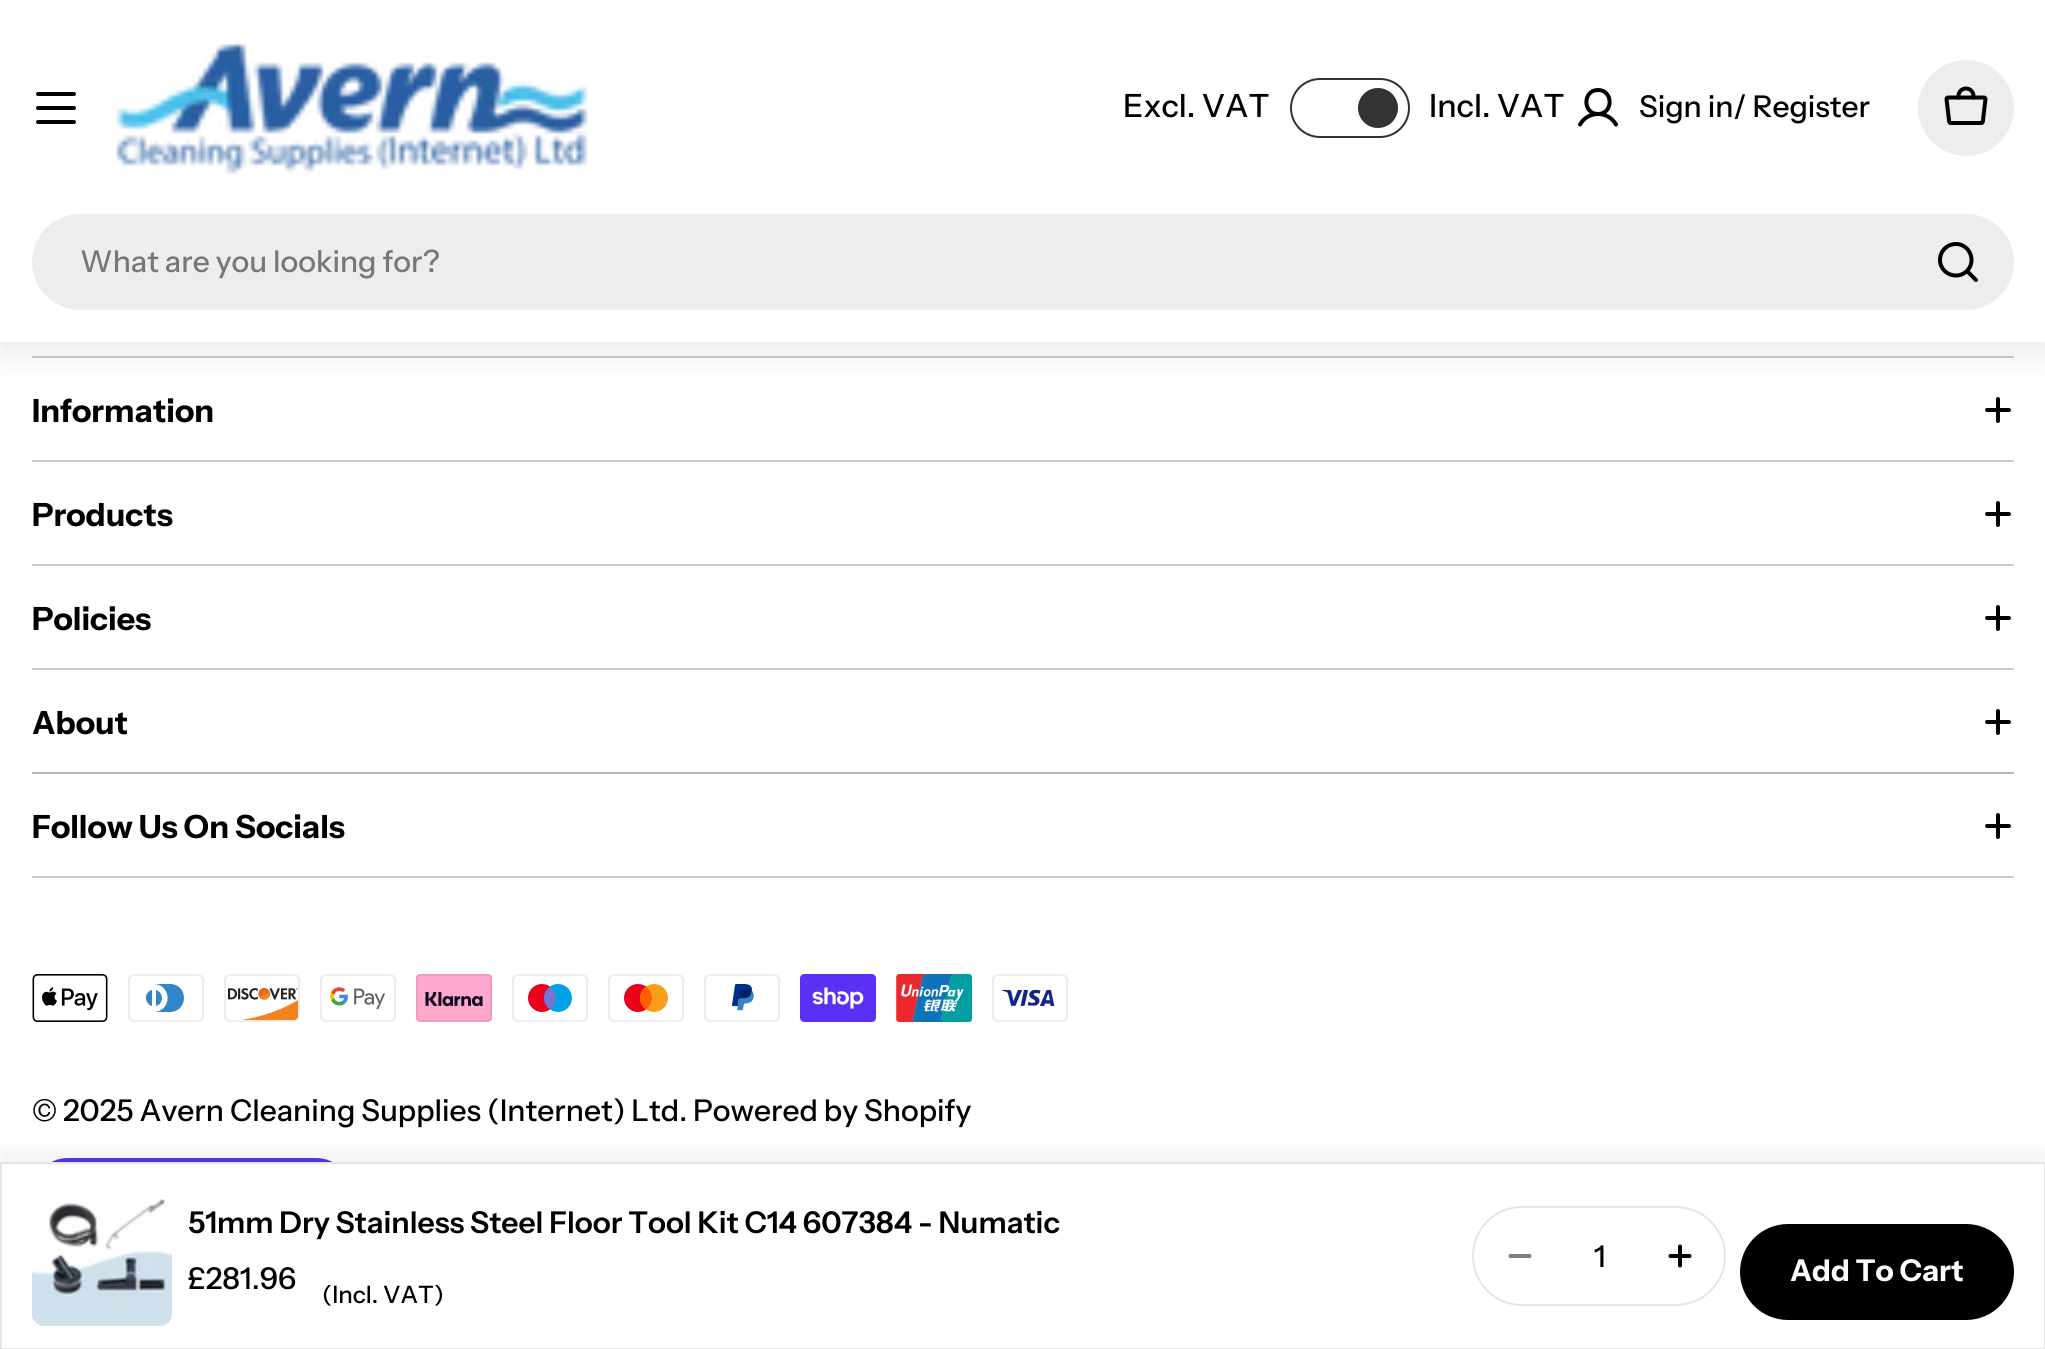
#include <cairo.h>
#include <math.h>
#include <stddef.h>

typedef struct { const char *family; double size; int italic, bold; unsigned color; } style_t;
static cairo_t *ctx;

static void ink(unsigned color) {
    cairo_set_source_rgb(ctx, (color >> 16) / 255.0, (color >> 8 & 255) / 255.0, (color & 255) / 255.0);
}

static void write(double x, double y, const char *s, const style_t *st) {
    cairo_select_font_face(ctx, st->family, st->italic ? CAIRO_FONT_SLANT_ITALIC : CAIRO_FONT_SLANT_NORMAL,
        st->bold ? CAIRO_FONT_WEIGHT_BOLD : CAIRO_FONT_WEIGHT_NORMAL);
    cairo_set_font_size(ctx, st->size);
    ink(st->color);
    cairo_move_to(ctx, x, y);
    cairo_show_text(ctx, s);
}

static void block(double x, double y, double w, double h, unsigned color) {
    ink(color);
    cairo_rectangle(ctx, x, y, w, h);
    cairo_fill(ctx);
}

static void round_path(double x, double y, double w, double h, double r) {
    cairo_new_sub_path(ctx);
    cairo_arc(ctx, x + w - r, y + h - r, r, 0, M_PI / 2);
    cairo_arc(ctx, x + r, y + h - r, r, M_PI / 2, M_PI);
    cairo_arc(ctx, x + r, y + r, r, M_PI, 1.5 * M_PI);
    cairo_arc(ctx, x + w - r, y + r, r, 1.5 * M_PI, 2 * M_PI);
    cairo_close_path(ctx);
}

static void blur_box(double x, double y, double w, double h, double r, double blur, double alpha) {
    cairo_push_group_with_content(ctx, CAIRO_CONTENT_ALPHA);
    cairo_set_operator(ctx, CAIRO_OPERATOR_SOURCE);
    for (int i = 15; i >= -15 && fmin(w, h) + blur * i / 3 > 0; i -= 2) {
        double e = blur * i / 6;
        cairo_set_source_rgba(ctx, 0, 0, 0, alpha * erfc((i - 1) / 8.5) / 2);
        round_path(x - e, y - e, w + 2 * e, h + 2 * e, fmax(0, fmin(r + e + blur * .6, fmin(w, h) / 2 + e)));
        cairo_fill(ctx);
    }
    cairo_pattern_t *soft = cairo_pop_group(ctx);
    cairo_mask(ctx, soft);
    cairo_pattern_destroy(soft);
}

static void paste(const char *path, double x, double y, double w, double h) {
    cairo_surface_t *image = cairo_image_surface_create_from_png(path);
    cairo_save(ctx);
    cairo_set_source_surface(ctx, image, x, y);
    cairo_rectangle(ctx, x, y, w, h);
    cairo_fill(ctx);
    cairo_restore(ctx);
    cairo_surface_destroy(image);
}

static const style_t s1 = {"Instrument Sans Medium", 32, 0, 0, 0x000000};
static const style_t s2 = {"Instrument Sans Medium", 30, 0, 0, 0x000000};
static const style_t s3 = {"Instrument Sans Medium", 30, 0, 0, 0x777777};
static const style_t s4 = {"Instrument Sans", 32, 0, 1, 0x000000};
static const style_t s5 = {"Instrument Sans SemiBold", 30, 0, 0, 0x000000};
static const style_t s6 = {"Instrument Sans Medium", 24, 0, 0, 0x000000};
static const style_t s7 = {"Instrument Sans", 30, 0, 1, 0xffffff};

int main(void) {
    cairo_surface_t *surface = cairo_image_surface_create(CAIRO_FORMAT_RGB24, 2045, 1349);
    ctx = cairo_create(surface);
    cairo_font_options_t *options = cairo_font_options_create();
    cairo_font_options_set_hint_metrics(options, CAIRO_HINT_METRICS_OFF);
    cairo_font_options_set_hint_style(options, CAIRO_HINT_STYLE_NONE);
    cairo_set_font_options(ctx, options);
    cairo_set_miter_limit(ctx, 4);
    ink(0xffffff);
    cairo_paint(ctx);
    block(32, 356, 1982, 2, 0xcccccc);
    cairo_new_path(ctx);
    cairo_move_to(ctx, 1987, 410);
    cairo_line_to(ctx, 2009, 410);
    cairo_move_to(ctx, 1998, 399);
    cairo_line_to(ctx, 1998, 421);
    ink(0x000000);
    cairo_set_line_width(ctx, 4);
    cairo_set_line_cap(ctx, CAIRO_LINE_CAP_ROUND);
    cairo_set_line_join(ctx, CAIRO_LINE_JOIN_ROUND);
    cairo_stroke(ctx);
    ink(0x000000);
    blur_box(0, 8, 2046, 342, 0, 18, 0.1);
    block(0, 0, 2045, 342, 0xffffff);
    ink(0x000000);
    round_path(36, 106, 40, 4, 2);
    cairo_fill(ctx);
    round_path(36, 92, 40, 4, 2);
    cairo_fill(ctx);
    round_path(36, 120, 40, 4, 2);
    cairo_fill(ctx);
    paste("pic1.png", 116, 41, 472, 134);
    write(1123, 117, "Excl. VAT", &s1);
    round_path(1291, 79, 118, 58, 29);
    ink(0x333333);
    cairo_set_line_width(ctx, 2);
    cairo_set_line_cap(ctx, CAIRO_LINE_CAP_BUTT);
    cairo_set_line_join(ctx, CAIRO_LINE_JOIN_MITER);
    cairo_stroke(ctx);
    cairo_arc(ctx, 1378, 108, 20, 0, 2 * M_PI);
    cairo_fill(ctx);
    write(1429, 117, "Incl. VAT", &s1);
    cairo_new_path(ctx);
    cairo_move_to(ctx, 1598, 114);
    cairo_curve_to(ctx, 1613.5, 114, 1613.5, 90, 1598, 90);
    cairo_curve_to(ctx, 1582.5, 90, 1582.5, 114, 1598, 114);
    cairo_close_path(ctx);
    cairo_move_to(ctx, 1580, 124.5);
    cairo_curve_to(ctx, 1588, 110.5, 1608, 110.5, 1616, 124.5);
    cairo_set_line_width(ctx, 4);
    cairo_set_line_cap(ctx, CAIRO_LINE_CAP_ROUND);
    cairo_set_line_join(ctx, CAIRO_LINE_JOIN_ROUND);
    cairo_stroke(ctx);
    write(1639, 117, "Sign in/ Register", &s2);
    ink(0xededed);
    cairo_new_path(ctx);
    cairo_arc(ctx, 1966, 108, 48, 0, 2 * M_PI);
    cairo_fill(ctx);
    paste("pic2.png", 1944, 86, 44, 39);
    round_path(32, 214, 1982, 96, 48);
    cairo_fill(ctx);
    write(80, 272, "What are you looking for?", &s3);
    cairo_new_path(ctx);
    cairo_move_to(ctx, 1956, 275.5);
    cairo_curve_to(ctx, 1964.5, 275.5, 1971.5, 268.5, 1971.5, 260);
    cairo_curve_to(ctx, 1971.5, 251, 1964.5, 244, 1956, 244);
    cairo_curve_to(ctx, 1947, 244, 1940, 251, 1940, 260);
    cairo_curve_to(ctx, 1940, 268.5, 1947, 275.5, 1956, 275.5);
    cairo_close_path(ctx);
    cairo_move_to(ctx, 1967, 271);
    cairo_line_to(ctx, 1976, 280);
    ink(0x000000);
    cairo_stroke(ctx);
    block(32, 460, 1982, 2, 0xcccccc);
    write(32, 422, "Information", &s4);
    block(32, 564, 1982, 2, 0xcccccc);
    write(32, 526, "Products", &s4);
    cairo_new_path(ctx);
    cairo_move_to(ctx, 1987, 514);
    cairo_line_to(ctx, 2009, 514);
    cairo_move_to(ctx, 1998, 503);
    cairo_line_to(ctx, 1998, 525);
    cairo_stroke(ctx);
    block(32, 668, 1982, 2, 0xcccccc);
    write(32, 630, "Policies", &s4);
    cairo_new_path(ctx);
    cairo_move_to(ctx, 1987, 618);
    cairo_line_to(ctx, 2009, 618);
    cairo_move_to(ctx, 1998, 607);
    cairo_line_to(ctx, 1998, 629);
    cairo_stroke(ctx);
    write(32, 734, "About", &s4);
    cairo_new_path(ctx);
    cairo_move_to(ctx, 1987, 722);
    cairo_line_to(ctx, 2009, 722);
    cairo_move_to(ctx, 1998, 711);
    cairo_line_to(ctx, 1998, 733);
    cairo_stroke(ctx);
    block(32, 772, 1982, 2, 0xb8b8b8);
    block(32, 876, 1982, 2, 0xcccccc);
    write(32, 838, "Follow Us On Socials", &s4);
    cairo_new_path(ctx);
    cairo_move_to(ctx, 1987, 826);
    cairo_line_to(ctx, 2009, 826);
    cairo_move_to(ctx, 1998, 815);
    cairo_line_to(ctx, 1998, 837);
    cairo_stroke(ctx);
    paste("pic3.png", 32, 974, 76, 48);
    paste("pic4.png", 128, 974, 76, 48);
    paste("pic5.png", 224, 974, 76, 48);
    paste("pic6.png", 320, 974, 76, 48);
    paste("pic7.png", 416, 974, 76, 48);
    paste("pic8.png", 512, 974, 76, 48);
    paste("pic9.png", 608, 974, 76, 48);
    paste("pic10.png", 704, 974, 76, 48);
    paste("pic11.png", 800, 974, 76, 48);
    paste("pic12.png", 896, 974, 76, 48);
    paste("pic13.png", 992, 974, 76, 48);
    write(32, 1121, "© 2025 Avern Cleaning Supplies (Internet) Ltd. Powered by Shopify", &s2);
    ink(0x5433eb);
    round_path(32, 1158, 320, 72, 36);
    cairo_fill(ctx);
    ink(0x000000);
    blur_box(0, 1150, 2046, 188, 0, 10, 0.05);
    block(2, 1164, 2042, 182, 0xffffff);
    cairo_rectangle(ctx, 1, 1163, 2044, 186);
    ink(0xe5e5e5);
    cairo_set_line_width(ctx, 2);
    cairo_set_line_cap(ctx, CAIRO_LINE_CAP_BUTT);
    cairo_set_line_join(ctx, CAIRO_LINE_JOIN_MITER);
    cairo_stroke(ctx);
    paste("pic14.png", 32, 1199, 140, 127);
    write(188, 1233, "51mm Dry Stainless Steel Floor Tool Kit C14 607384 - Numatic", &s5);
    write(188, 1289, "£281.96", &s2);
    write(322, 1303, "(Incl. VAT)", &s6);
    round_path(1473, 1207, 252, 98, 49);
    ink(0xe5e5e5);
    cairo_stroke(ctx);
    cairo_new_path(ctx);
    cairo_move_to(ctx, 1510.5, 1256);
    cairo_line_to(ctx, 1529.5, 1256);
    ink(0x808080);
    cairo_set_line_width(ctx, 4);
    cairo_set_line_cap(ctx, CAIRO_LINE_CAP_ROUND);
    cairo_set_line_join(ctx, CAIRO_LINE_JOIN_ROUND);
    cairo_stroke(ctx);
    write(1594, 1267, "1", &s2);
    cairo_new_path(ctx);
    cairo_move_to(ctx, 1670.5, 1256);
    cairo_line_to(ctx, 1689.5, 1256);
    cairo_move_to(ctx, 1680, 1246.5);
    cairo_line_to(ctx, 1680, 1265.5);
    cairo_stroke(ctx);
    round_path(1741, 1225, 272, 94, 47);
    cairo_fill_preserve(ctx);
    cairo_set_line_width(ctx, 2);
    cairo_set_line_cap(ctx, CAIRO_LINE_CAP_BUTT);
    cairo_set_line_join(ctx, CAIRO_LINE_JOIN_MITER);
    cairo_stroke(ctx);
    write(1790, 1281, "Add To Cart", &s7);
    cairo_surface_write_to_png(surface, "screenshot.png");
    cairo_font_options_destroy(options);
    cairo_destroy(ctx);
    cairo_surface_destroy(surface);
    return 0;
}
